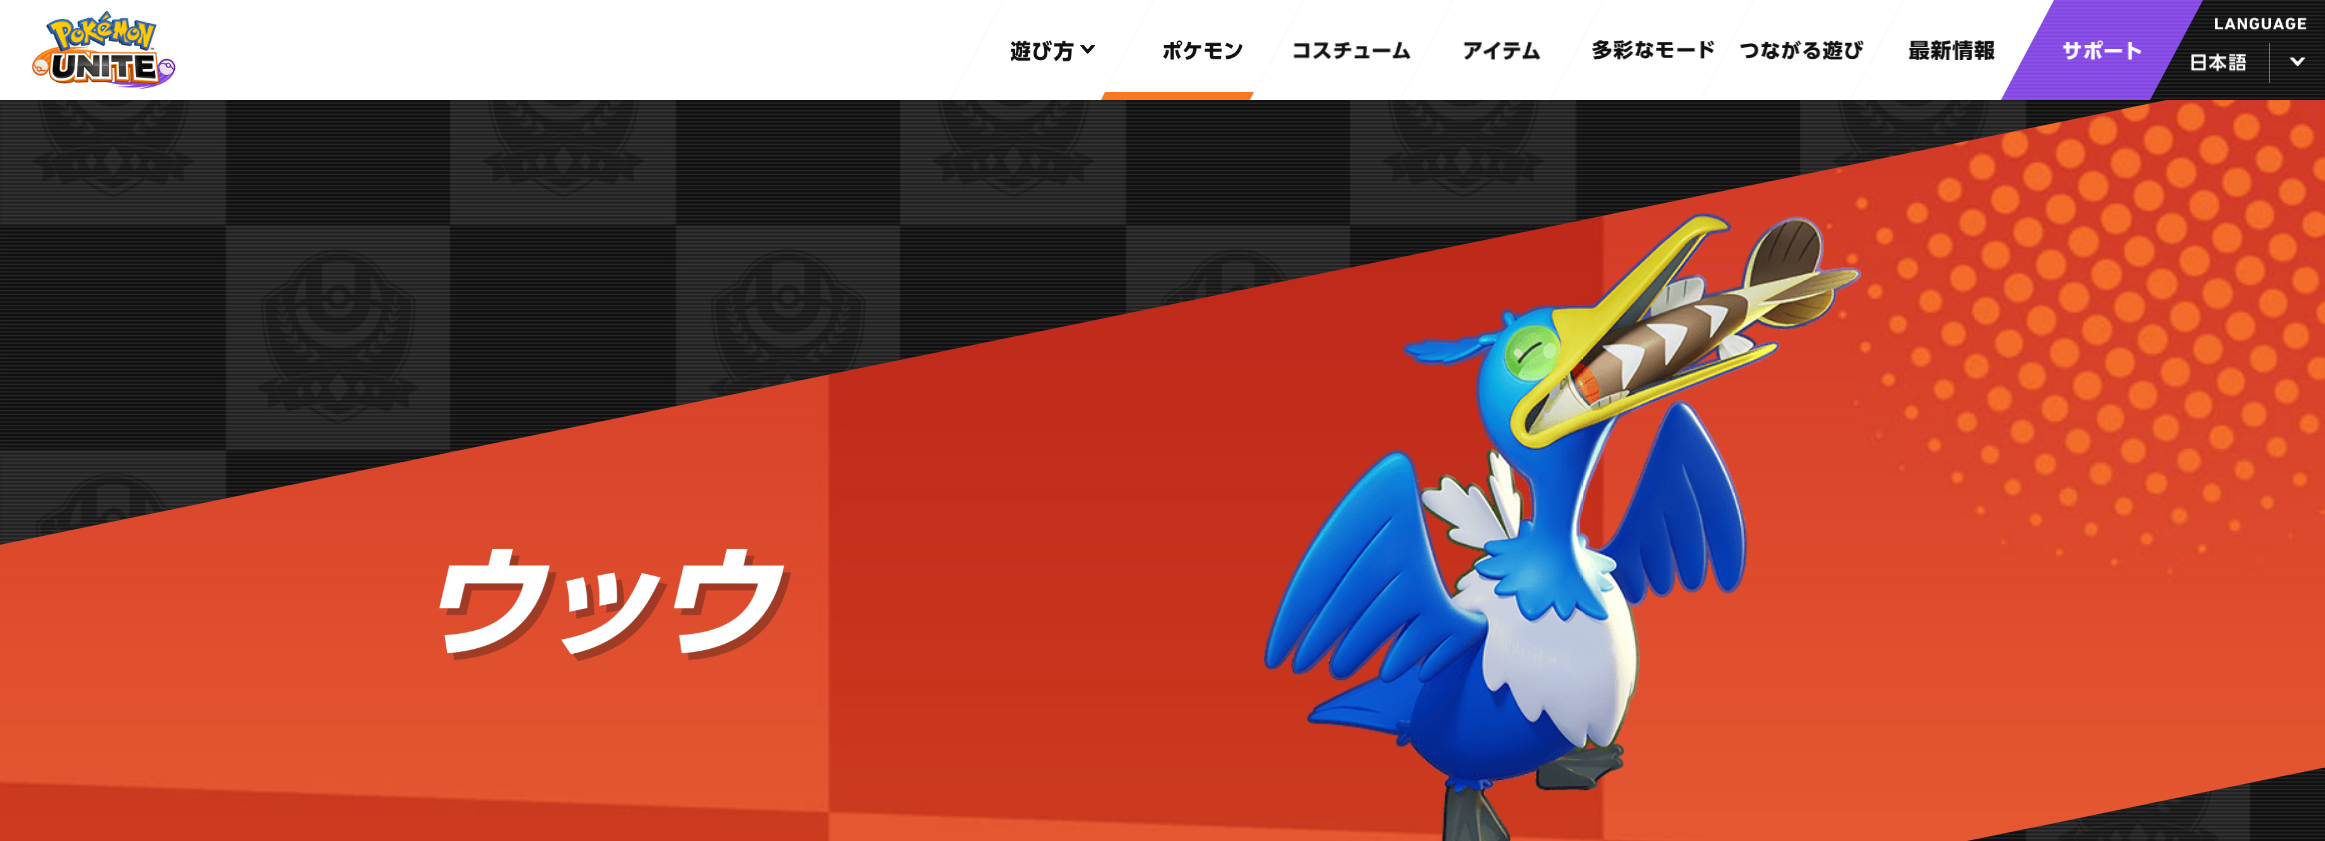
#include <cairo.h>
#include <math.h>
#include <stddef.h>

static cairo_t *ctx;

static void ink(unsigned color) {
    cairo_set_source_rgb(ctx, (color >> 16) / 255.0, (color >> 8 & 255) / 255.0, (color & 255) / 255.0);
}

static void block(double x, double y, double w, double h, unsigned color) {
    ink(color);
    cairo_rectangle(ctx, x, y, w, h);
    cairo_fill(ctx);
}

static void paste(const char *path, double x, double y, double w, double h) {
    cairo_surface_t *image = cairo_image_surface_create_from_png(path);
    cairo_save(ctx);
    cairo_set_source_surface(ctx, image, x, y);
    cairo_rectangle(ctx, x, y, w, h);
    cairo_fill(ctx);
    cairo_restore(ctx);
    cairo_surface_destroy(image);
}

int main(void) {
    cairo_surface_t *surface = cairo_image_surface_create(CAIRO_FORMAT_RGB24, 2325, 841);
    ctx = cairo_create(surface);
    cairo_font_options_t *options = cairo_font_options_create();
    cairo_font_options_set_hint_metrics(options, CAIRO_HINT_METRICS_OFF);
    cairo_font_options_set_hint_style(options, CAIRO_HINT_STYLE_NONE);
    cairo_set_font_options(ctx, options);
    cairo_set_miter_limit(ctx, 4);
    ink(0xffffff);
    cairo_paint(ctx);
    paste("pic1.png", 32, 10, 144, 80);
    ink(0xf5f4f7);
    cairo_new_path(ctx);
    cairo_move_to(ctx, 1003, 0);
    cairo_line_to(ctx, 1004, 0);
    cairo_line_to(ctx, 951, 100);
    cairo_line_to(ctx, 950, 100);
    cairo_close_path(ctx);
    cairo_fill(ctx);
    ink(0xffffff);
    cairo_new_path(ctx);
    cairo_move_to(ctx, 1004, 0);
    cairo_line_to(ctx, 1153, 0);
    cairo_line_to(ctx, 1100, 100);
    cairo_line_to(ctx, 951, 100);
    cairo_close_path(ctx);
    cairo_fill(ctx);
    paste("pic2.png", 1010, 40, 64, 22);
    paste("pic3.png", 1080, 45, 16, 9);
    ink(0xf5f4f7);
    cairo_new_path(ctx);
    cairo_move_to(ctx, 1153, 0);
    cairo_line_to(ctx, 1154, 0);
    cairo_line_to(ctx, 1101, 100);
    cairo_line_to(ctx, 1100, 100);
    cairo_close_path(ctx);
    cairo_fill(ctx);
    ink(0xffffff);
    cairo_new_path(ctx);
    cairo_move_to(ctx, 1154, 0);
    cairo_line_to(ctx, 1303, 0);
    cairo_line_to(ctx, 1250, 100);
    cairo_line_to(ctx, 1101, 100);
    cairo_close_path(ctx);
    cairo_fill(ctx);
    paste("pic4.png", 1163, 40, 80, 20);
    ink(0xfa7822);
    cairo_new_path(ctx);
    cairo_move_to(ctx, 1105, 92);
    cairo_line_to(ctx, 1254, 92);
    cairo_line_to(ctx, 1250, 100);
    cairo_line_to(ctx, 1101, 100);
    cairo_close_path(ctx);
    cairo_fill(ctx);
    ink(0xf5f4f7);
    cairo_new_path(ctx);
    cairo_move_to(ctx, 1303, 0);
    cairo_line_to(ctx, 1304, 0);
    cairo_line_to(ctx, 1251, 100);
    cairo_line_to(ctx, 1250, 100);
    cairo_close_path(ctx);
    cairo_fill(ctx);
    ink(0xffffff);
    cairo_new_path(ctx);
    cairo_move_to(ctx, 1304, 0);
    cairo_line_to(ctx, 1453, 0);
    cairo_line_to(ctx, 1400, 100);
    cairo_line_to(ctx, 1251, 100);
    cairo_close_path(ctx);
    cairo_fill(ctx);
    paste("pic5.png", 1293, 41, 118, 19);
    ink(0xf5f4f7);
    cairo_new_path(ctx);
    cairo_move_to(ctx, 1453, 0);
    cairo_line_to(ctx, 1454, 0);
    cairo_line_to(ctx, 1401, 100);
    cairo_line_to(ctx, 1400, 100);
    cairo_close_path(ctx);
    cairo_fill(ctx);
    ink(0xffffff);
    cairo_new_path(ctx);
    cairo_move_to(ctx, 1454, 0);
    cairo_line_to(ctx, 1603, 0);
    cairo_line_to(ctx, 1550, 100);
    cairo_line_to(ctx, 1401, 100);
    cairo_close_path(ctx);
    cairo_fill(ctx);
    paste("pic6.png", 1463, 41, 78, 20);
    ink(0xf5f4f7);
    cairo_new_path(ctx);
    cairo_move_to(ctx, 1603, 0);
    cairo_line_to(ctx, 1604, 0);
    cairo_line_to(ctx, 1551, 100);
    cairo_line_to(ctx, 1550, 100);
    cairo_close_path(ctx);
    cairo_fill(ctx);
    ink(0xffffff);
    cairo_new_path(ctx);
    cairo_move_to(ctx, 1604, 0);
    cairo_line_to(ctx, 1753, 0);
    cairo_line_to(ctx, 1700, 100);
    cairo_line_to(ctx, 1551, 100);
    cairo_close_path(ctx);
    cairo_fill(ctx);
    paste("pic7.png", 1592, 40, 123, 20);
    ink(0xf5f4f7);
    cairo_new_path(ctx);
    cairo_move_to(ctx, 1753, 0);
    cairo_line_to(ctx, 1754, 0);
    cairo_line_to(ctx, 1701, 100);
    cairo_line_to(ctx, 1700, 100);
    cairo_close_path(ctx);
    cairo_fill(ctx);
    ink(0xffffff);
    cairo_new_path(ctx);
    cairo_move_to(ctx, 1754, 0);
    cairo_line_to(ctx, 1903, 0);
    cairo_line_to(ctx, 1850, 100);
    cairo_line_to(ctx, 1701, 100);
    cairo_close_path(ctx);
    cairo_fill(ctx);
    paste("pic8.png", 1740, 40, 124, 20);
    ink(0xf5f4f7);
    cairo_new_path(ctx);
    cairo_move_to(ctx, 1903, 0);
    cairo_line_to(ctx, 1904, 0);
    cairo_line_to(ctx, 1851, 100);
    cairo_line_to(ctx, 1850, 100);
    cairo_close_path(ctx);
    cairo_fill(ctx);
    ink(0xffffff);
    cairo_new_path(ctx);
    cairo_move_to(ctx, 1904, 0);
    cairo_line_to(ctx, 2053, 0);
    cairo_line_to(ctx, 2000, 100);
    cairo_line_to(ctx, 1851, 100);
    cairo_close_path(ctx);
    cairo_fill(ctx);
    paste("pic9.png", 1908, 40, 87, 20);
    ink(0xf5f4f7);
    cairo_new_path(ctx);
    cairo_move_to(ctx, 2053, 0);
    cairo_line_to(ctx, 2054, 0);
    cairo_line_to(ctx, 2001, 100);
    cairo_line_to(ctx, 2000, 100);
    cairo_close_path(ctx);
    cairo_fill(ctx);
    block(2150, 0, 175, 100, 0x101010);
    paste("pic12.png", 2150, 0, 175, 99);
    ink(0x8346e4);
    cairo_new_path(ctx);
    cairo_move_to(ctx, 2054, 0);
    cairo_line_to(ctx, 2203, 0);
    cairo_line_to(ctx, 2150, 100);
    cairo_line_to(ctx, 2001, 100);
    cairo_close_path(ctx);
    cairo_fill(ctx);
    paste("pic10.png", 2002, 0, 201, 99);
    paste("pic11.png", 2062, 40, 80, 20);
    paste("pic13.png", 2215, 17, 92, 14);
    paste("pic14.png", 2191, 53, 56, 19);
    cairo_set_source_rgba(ctx, 1, 1, 1, 0.4);
    cairo_rectangle(ctx, 2269, 43, 1, 40);
    cairo_fill(ctx);
    paste("pic15.png", 2289, 57, 17, 10);
    paste("pic16.png", 0, 100, 2325, 741);
    paste("pic20.png", 0, 102, 2325, 737);
    paste("pic17.png", 0, 100, 2325, 741);
    paste("pic18.png", 439, 548, 352, 113);
    paste("pic19.png", 1264, 213, 597, 628);
    cairo_surface_write_to_png(surface, "screenshot.png");
    cairo_font_options_destroy(options);
    cairo_destroy(ctx);
    cairo_surface_destroy(surface);
    return 0;
}
